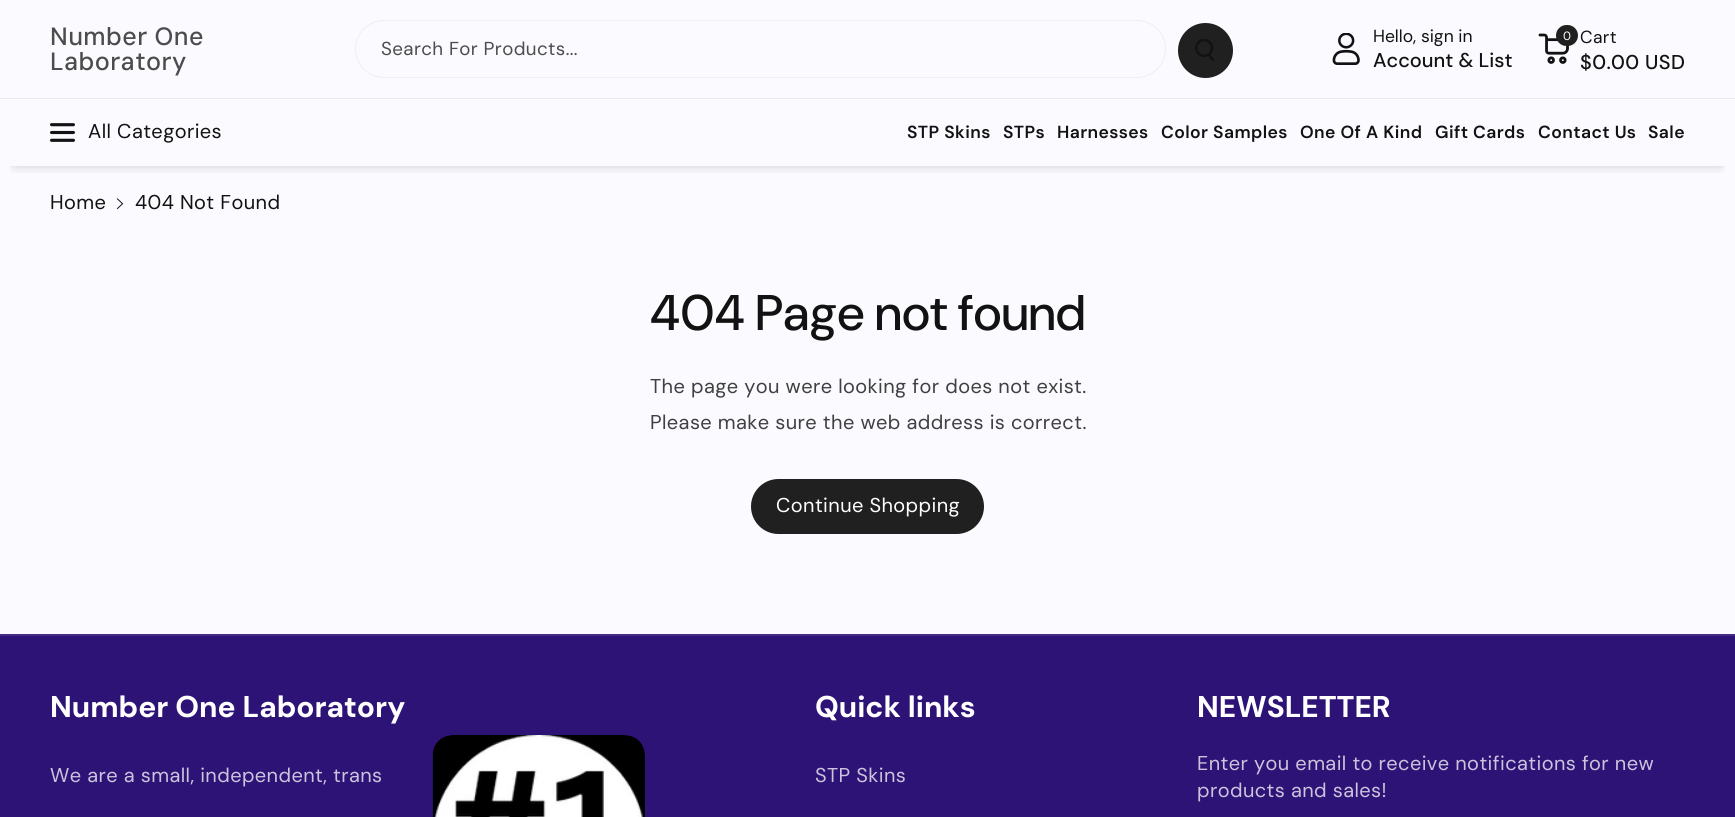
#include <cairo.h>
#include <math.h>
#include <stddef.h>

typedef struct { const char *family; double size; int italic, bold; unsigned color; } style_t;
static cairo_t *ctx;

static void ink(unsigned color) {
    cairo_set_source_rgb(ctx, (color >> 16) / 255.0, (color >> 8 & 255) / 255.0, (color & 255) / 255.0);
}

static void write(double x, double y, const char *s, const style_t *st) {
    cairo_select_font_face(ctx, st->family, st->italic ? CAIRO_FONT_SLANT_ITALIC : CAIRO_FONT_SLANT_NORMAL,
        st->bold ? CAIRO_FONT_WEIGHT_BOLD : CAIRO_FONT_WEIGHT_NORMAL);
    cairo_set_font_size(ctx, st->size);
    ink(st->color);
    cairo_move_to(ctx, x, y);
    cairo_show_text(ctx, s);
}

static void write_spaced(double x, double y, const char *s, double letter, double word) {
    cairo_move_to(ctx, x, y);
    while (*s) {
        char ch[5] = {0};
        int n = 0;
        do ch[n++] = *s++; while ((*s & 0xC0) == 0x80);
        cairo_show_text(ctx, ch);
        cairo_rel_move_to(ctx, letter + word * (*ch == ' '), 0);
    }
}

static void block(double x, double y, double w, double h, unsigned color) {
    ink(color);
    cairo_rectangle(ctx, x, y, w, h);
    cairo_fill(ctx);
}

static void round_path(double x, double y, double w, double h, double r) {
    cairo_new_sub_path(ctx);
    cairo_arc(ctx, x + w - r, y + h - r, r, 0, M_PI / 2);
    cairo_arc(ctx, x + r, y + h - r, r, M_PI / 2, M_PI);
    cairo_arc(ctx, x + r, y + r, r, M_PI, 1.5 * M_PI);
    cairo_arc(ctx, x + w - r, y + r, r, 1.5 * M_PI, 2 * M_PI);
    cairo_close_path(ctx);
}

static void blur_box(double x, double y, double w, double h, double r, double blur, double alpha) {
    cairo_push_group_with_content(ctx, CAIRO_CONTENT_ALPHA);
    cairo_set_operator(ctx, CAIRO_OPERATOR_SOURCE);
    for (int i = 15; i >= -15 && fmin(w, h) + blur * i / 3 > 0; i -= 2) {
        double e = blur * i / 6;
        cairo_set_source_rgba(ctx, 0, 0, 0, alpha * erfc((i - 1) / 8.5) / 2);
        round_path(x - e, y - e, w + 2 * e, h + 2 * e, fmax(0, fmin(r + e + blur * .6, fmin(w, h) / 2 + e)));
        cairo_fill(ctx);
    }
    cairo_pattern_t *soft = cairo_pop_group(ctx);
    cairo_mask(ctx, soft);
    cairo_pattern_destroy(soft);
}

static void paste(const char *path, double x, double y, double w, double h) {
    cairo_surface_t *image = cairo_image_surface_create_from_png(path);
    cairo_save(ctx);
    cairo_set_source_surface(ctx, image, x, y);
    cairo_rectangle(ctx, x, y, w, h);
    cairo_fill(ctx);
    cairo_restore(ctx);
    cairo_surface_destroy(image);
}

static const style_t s1 = {"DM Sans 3", 17.5, 0, 0, 0x121212};
static const style_t s2 = {"DM Sans 3 Medium", 20, 0, 0, 0x121212};
static const style_t s3 = {"DM Sans", 30, 0, 1, 0xffffff};

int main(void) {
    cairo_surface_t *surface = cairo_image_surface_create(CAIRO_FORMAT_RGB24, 1735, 817);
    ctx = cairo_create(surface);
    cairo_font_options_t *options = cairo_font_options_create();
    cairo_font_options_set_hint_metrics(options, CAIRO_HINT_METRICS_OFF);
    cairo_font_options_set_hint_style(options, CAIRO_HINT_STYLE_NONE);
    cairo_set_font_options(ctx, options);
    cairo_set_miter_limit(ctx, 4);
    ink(0xfafaff);
    cairo_paint(ctx);
    cairo_save(ctx);
    cairo_rectangle(ctx, 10, 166, 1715, 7);
    cairo_clip(ctx);
    ink(0x121212);
    blur_box(15, 23, 1705, 136, 0, 7.5, 0.6);
    cairo_restore(ctx);
    cairo_select_font_face(ctx, "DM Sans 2 Medium", CAIRO_FONT_SLANT_NORMAL, CAIRO_FONT_WEIGHT_NORMAL);
    cairo_set_font_size(ctx, 25);
    ink(0x4c4c4d);
    write_spaced(50, 45, "Number One", 0.4, 0);
    write_spaced(50, 70, "Laboratory", 0.4, 0);
    round_path(355.5, 20.5, 810, 57, 28.5);
    ink(0xeeeef3);
    cairo_set_line_width(ctx, 1);
    cairo_stroke(ctx);
    cairo_select_font_face(ctx, "DM Sans 2", CAIRO_FONT_SLANT_NORMAL, CAIRO_FONT_WEIGHT_NORMAL);
    cairo_set_font_size(ctx, 18.75);
    ink(0x4c4c4d);
    write_spaced(381, 55, "Search For Products...", 0.4, 0);
    ink(0x202020);
    cairo_new_path(ctx);
    cairo_arc(ctx, 1205.5, 50.5, 27.5, 0, 2 * M_PI);
    cairo_fill(ctx);
    paste("pic1.png", 1195, 39, 19, 22);
    paste("pic2.png", 1332, 33, 28, 32);
    write(1373, 42, "Hello, sign in", &s1);
    write(1373, 67, "Account & List", &s2);
    paste("pic3.png", 1538, 33, 31, 31);
    ink(0x202020);
    round_path(1556, 25, 22, 21, 10.5);
    cairo_fill(ctx);
    cairo_select_font_face(ctx, "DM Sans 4", CAIRO_FONT_SLANT_NORMAL, CAIRO_FONT_WEIGHT_NORMAL);
    cairo_set_font_size(ctx, 12);
    ink(0xffffff);
    write_spaced(1563, 40, "0", 0.4, 0);
    cairo_select_font_face(ctx, "DM Sans 3", CAIRO_FONT_SLANT_NORMAL, CAIRO_FONT_WEIGHT_NORMAL);
    cairo_set_font_size(ctx, 17.5);
    ink(0x121212);
    write_spaced(1580, 43, "Cart", 0.4, 0);
    cairo_select_font_face(ctx, "DM Sans 3 Medium", CAIRO_FONT_SLANT_NORMAL, CAIRO_FONT_WEIGHT_NORMAL);
    cairo_set_font_size(ctx, 20);
    write_spaced(1580, 69, "$0.00 USD", 0.4, 0);
    block(0, 98, 1735, 1, 0xeaeaee);
    paste("pic4.png", 50, 123, 25, 19);
    cairo_select_font_face(ctx, "DM Sans", CAIRO_FONT_SLANT_NORMAL, CAIRO_FONT_WEIGHT_NORMAL);
    ink(0x121212);
    write_spaced(88, 138, "All Categories", 0.4, 0);
    cairo_select_font_face(ctx, "DM Sans SemiBold", CAIRO_FONT_SLANT_NORMAL, CAIRO_FONT_WEIGHT_NORMAL);
    cairo_set_font_size(ctx, 17.5);
    write_spaced(907, 138, "STP Skins", 0.4, 0);
    write_spaced(1003, 138, "STPs", 0.4, 0);
    write_spaced(1057, 138, "Harnesses", 0.4, 0);
    write_spaced(1161, 138, "Color Samples", 0.4, 0);
    write_spaced(1300, 138, "One Of A Kind", 0.4, 0);
    write_spaced(1435, 138, "Gift Cards", 0.4, 0);
    write_spaced(1538, 138, "Contact Us", 0.4, 0);
    write_spaced(1648, 138, "Sale", 0.4, 0);
    cairo_select_font_face(ctx, "DM Sans", CAIRO_FONT_SLANT_NORMAL, CAIRO_FONT_WEIGHT_NORMAL);
    cairo_set_font_size(ctx, 20);
    write_spaced(50, 209, "Home", 0.4, 0);
    paste("pic5.png", 116, 198, 8, 12);
    write_spaced(135, 209, "404 Not Found", 0.4, 0);
    cairo_select_font_face(ctx, "DM Sans Medium", CAIRO_FONT_SLANT_NORMAL, CAIRO_FONT_WEIGHT_NORMAL);
    cairo_set_font_size(ctx, 50);
    write_spaced(650, 330, "404 Page not found", 0.4, 0);
    cairo_select_font_face(ctx, "DM Sans", CAIRO_FONT_SLANT_NORMAL, CAIRO_FONT_WEIGHT_NORMAL);
    cairo_set_font_size(ctx, 20);
    ink(0x404041);
    write_spaced(650, 393, "The page you were looking for does not exist.", 0.4, 0);
    write_spaced(650, 429, "Please make sure the web address is correct.", 0.4, 0);
    ink(0x202020);
    round_path(751, 479, 233, 55, 27.5);
    cairo_fill(ctx);
    ink(0xffffff);
    write_spaced(776, 512, "Continue Shopping", 0.4, 0);
    block(0, 636, 1735, 181, 0x2e1377);
    block(0, 634, 1735, 2, 0x432b85);
    write(50, 717, "Number One Laboratory", &s3);
    cairo_select_font_face(ctx, "DM Sans", CAIRO_FONT_SLANT_NORMAL, CAIRO_FONT_WEIGHT_NORMAL);
    cairo_set_font_size(ctx, 20);
    ink(0xcbc4dd);
    write_spaced(50, 782, "We are a small, independent, trans", 0.4, 0);
    paste("pic6.png", 432, 735, 213, 82);
    write(815, 717, "Quick links", &s3);
    cairo_select_font_face(ctx, "DM Sans", CAIRO_FONT_SLANT_NORMAL, CAIRO_FONT_WEIGHT_NORMAL);
    cairo_set_font_size(ctx, 20);
    ink(0xcbc4dd);
    write_spaced(815, 782, "STP Skins", 0.4, 0);
    write(1197, 717, "NEWSLETTER", &s3);
    cairo_select_font_face(ctx, "DM Sans", CAIRO_FONT_SLANT_NORMAL, CAIRO_FONT_WEIGHT_NORMAL);
    cairo_set_font_size(ctx, 20);
    ink(0xcbc4dd);
    write_spaced(1197, 770, "Enter you email to receive notifications for new", 0.4, 0);
    write_spaced(1197, 797, "products and sales!", 0.4, 0);
    cairo_surface_write_to_png(surface, "screenshot.png");
    cairo_font_options_destroy(options);
    cairo_destroy(ctx);
    cairo_surface_destroy(surface);
    return 0;
}
